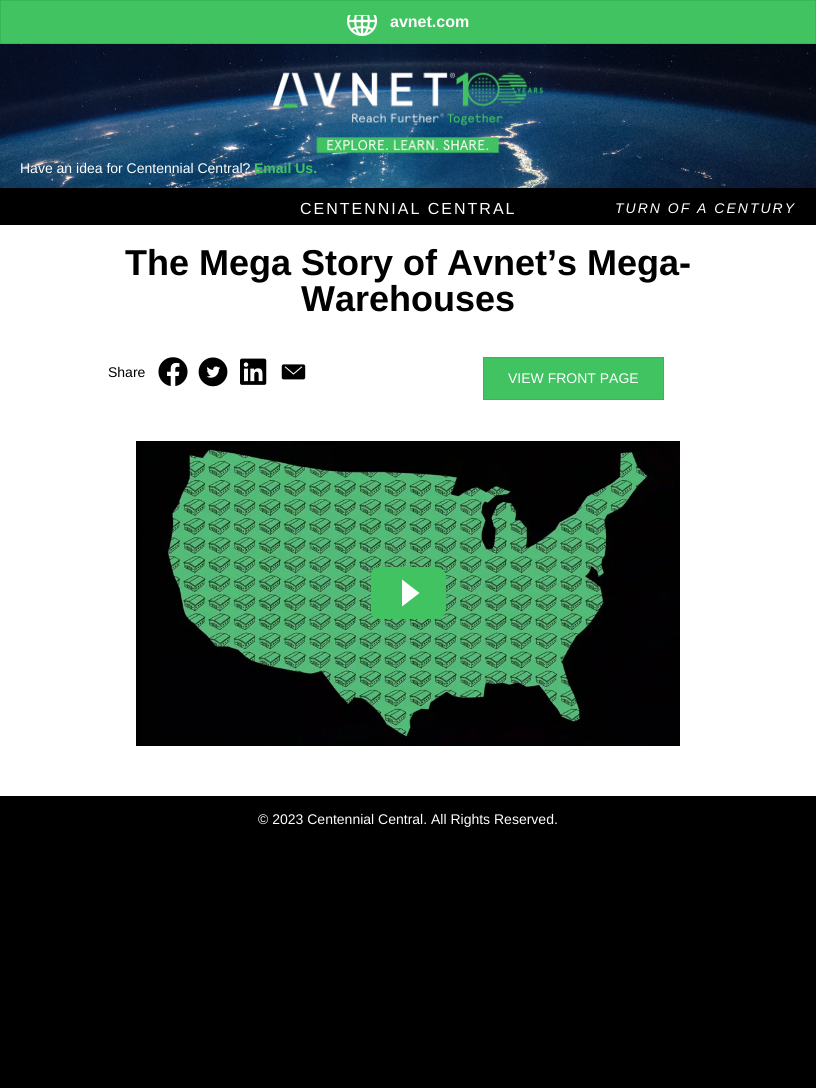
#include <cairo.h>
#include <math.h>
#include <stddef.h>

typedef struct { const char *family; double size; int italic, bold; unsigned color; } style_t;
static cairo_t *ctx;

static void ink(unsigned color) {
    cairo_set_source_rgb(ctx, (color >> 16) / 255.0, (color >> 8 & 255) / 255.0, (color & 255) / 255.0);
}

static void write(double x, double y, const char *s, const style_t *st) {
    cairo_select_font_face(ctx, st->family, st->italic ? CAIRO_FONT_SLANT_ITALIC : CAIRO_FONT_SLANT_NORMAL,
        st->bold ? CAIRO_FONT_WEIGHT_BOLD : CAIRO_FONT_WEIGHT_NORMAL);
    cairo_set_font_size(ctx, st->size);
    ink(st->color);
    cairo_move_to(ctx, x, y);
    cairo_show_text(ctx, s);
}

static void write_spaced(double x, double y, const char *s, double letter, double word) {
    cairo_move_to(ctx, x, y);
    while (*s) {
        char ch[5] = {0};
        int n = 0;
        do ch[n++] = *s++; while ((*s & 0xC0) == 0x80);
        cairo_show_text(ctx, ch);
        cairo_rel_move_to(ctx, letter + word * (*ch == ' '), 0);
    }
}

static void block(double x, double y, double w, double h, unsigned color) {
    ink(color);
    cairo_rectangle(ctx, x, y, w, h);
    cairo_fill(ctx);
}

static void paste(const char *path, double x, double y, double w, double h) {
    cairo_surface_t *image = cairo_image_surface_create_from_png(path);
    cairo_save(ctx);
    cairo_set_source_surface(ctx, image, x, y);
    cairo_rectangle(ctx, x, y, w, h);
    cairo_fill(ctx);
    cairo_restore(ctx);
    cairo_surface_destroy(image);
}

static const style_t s1 = {"Liberation Sans", 16, 0, 1, 0xffffff};
static const style_t s2 = {"Liberation Sans", 14, 0, 0, 0xffffff};
static const style_t s3 = {"Liberation Sans", 14, 0, 1, 0x41c362};
static const style_t s4 = {"Liberation Sans", 36, 0, 1, 0x000000};
static const style_t s5 = {"Liberation Sans", 14, 0, 0, 0x000000};

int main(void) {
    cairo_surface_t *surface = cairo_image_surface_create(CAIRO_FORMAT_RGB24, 816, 1088);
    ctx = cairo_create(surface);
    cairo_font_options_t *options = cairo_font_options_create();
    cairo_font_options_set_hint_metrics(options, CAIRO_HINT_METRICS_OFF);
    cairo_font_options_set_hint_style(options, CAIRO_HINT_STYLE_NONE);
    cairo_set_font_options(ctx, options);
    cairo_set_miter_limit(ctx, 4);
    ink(0x000000);
    cairo_paint(ctx);
    ink(0x41c362);
    cairo_rectangle(ctx, 0.5, 0.5, 815, 43);
    cairo_fill_preserve(ctx);
    ink(0x35b756);
    cairo_set_line_width(ctx, 1);
    cairo_stroke(ctx);
    paste("pic1.png", 347, 15, 30, 21);
    write(390, 27, "avnet.com", &s1);
    paste("pic2.png", 0, 44, 816, 144);
    paste("pic3.png", 273, 72, 271, 82);
    write(20, 173, "Have an idea for Centennial Central?", &s2);
    write(254, 173, "Email Us.", &s3);
    block(0, 225, 816, 571, 0xffffff);
    cairo_select_font_face(ctx, "Liberation Sans", CAIRO_FONT_SLANT_NORMAL, CAIRO_FONT_WEIGHT_NORMAL);
    cairo_set_font_size(ctx, 16);
    write_spaced(300, 214, "CENTENNIAL CENTRAL", 2, 0);
    cairo_select_font_face(ctx, "Liberation Sans", CAIRO_FONT_SLANT_ITALIC, CAIRO_FONT_WEIGHT_NORMAL);
    cairo_set_font_size(ctx, 14);
    write_spaced(615, 213, "TURN OF A CENTURY", 2, 0);
    write(125, 275, "The Mega Story of Avnet’s Mega-", &s4);
    write(301, 311, "Warehouses", &s4);
    write(108, 377, "Share", &s5);
    paste("pic4.png", 158, 357, 30, 29);
    paste("pic5.png", 198, 357, 30, 30);
    paste("pic6.png", 240, 358, 27, 27);
    paste("pic7.png", 281, 364, 25, 16);
    ink(0x41c362);
    cairo_rectangle(ctx, 483.5, 357.5, 180, 42);
    cairo_fill_preserve(ctx);
    ink(0x35b756);
    cairo_stroke(ctx);
    write(508, 383, "VIEW FRONT PAGE", &s2);
    block(136, 441, 6, 305, 0x000000);
    paste("pic8.png", 142, 441, 538, 305);
    cairo_save(ctx);
    cairo_rectangle(ctx, 371, 556, 75, 75);
    cairo_clip(ctx);
    ink(0x41c362);
    cairo_new_path(ctx);
    cairo_move_to(ctx, 380, 567);
    cairo_curve_to(ctx, 375, 567, 370, 571, 370, 577);
    cairo_line_to(ctx, 370, 609);
    cairo_curve_to(ctx, 370, 615, 375, 619, 380, 619);
    cairo_line_to(ctx, 436, 619);
    cairo_curve_to(ctx, 441, 619, 446, 615, 446, 609);
    cairo_line_to(ctx, 446, 577);
    cairo_curve_to(ctx, 446, 571, 441, 567, 436, 567);
    cairo_close_path(ctx);
    cairo_fill(ctx);
    cairo_restore(ctx);
    ink(0xffffff);
    cairo_new_path(ctx);
    cairo_move_to(ctx, 402, 606.5);
    cairo_line_to(ctx, 402, 579.5);
    cairo_line_to(ctx, 419.5, 593);
    cairo_close_path(ctx);
    cairo_fill(ctx);
    write(258, 824, "© 2023 Centennial Central. All Rights Reserved.", &s2);
    cairo_surface_write_to_png(surface, "screenshot.png");
    cairo_font_options_destroy(options);
    cairo_destroy(ctx);
    cairo_surface_destroy(surface);
    return 0;
}
